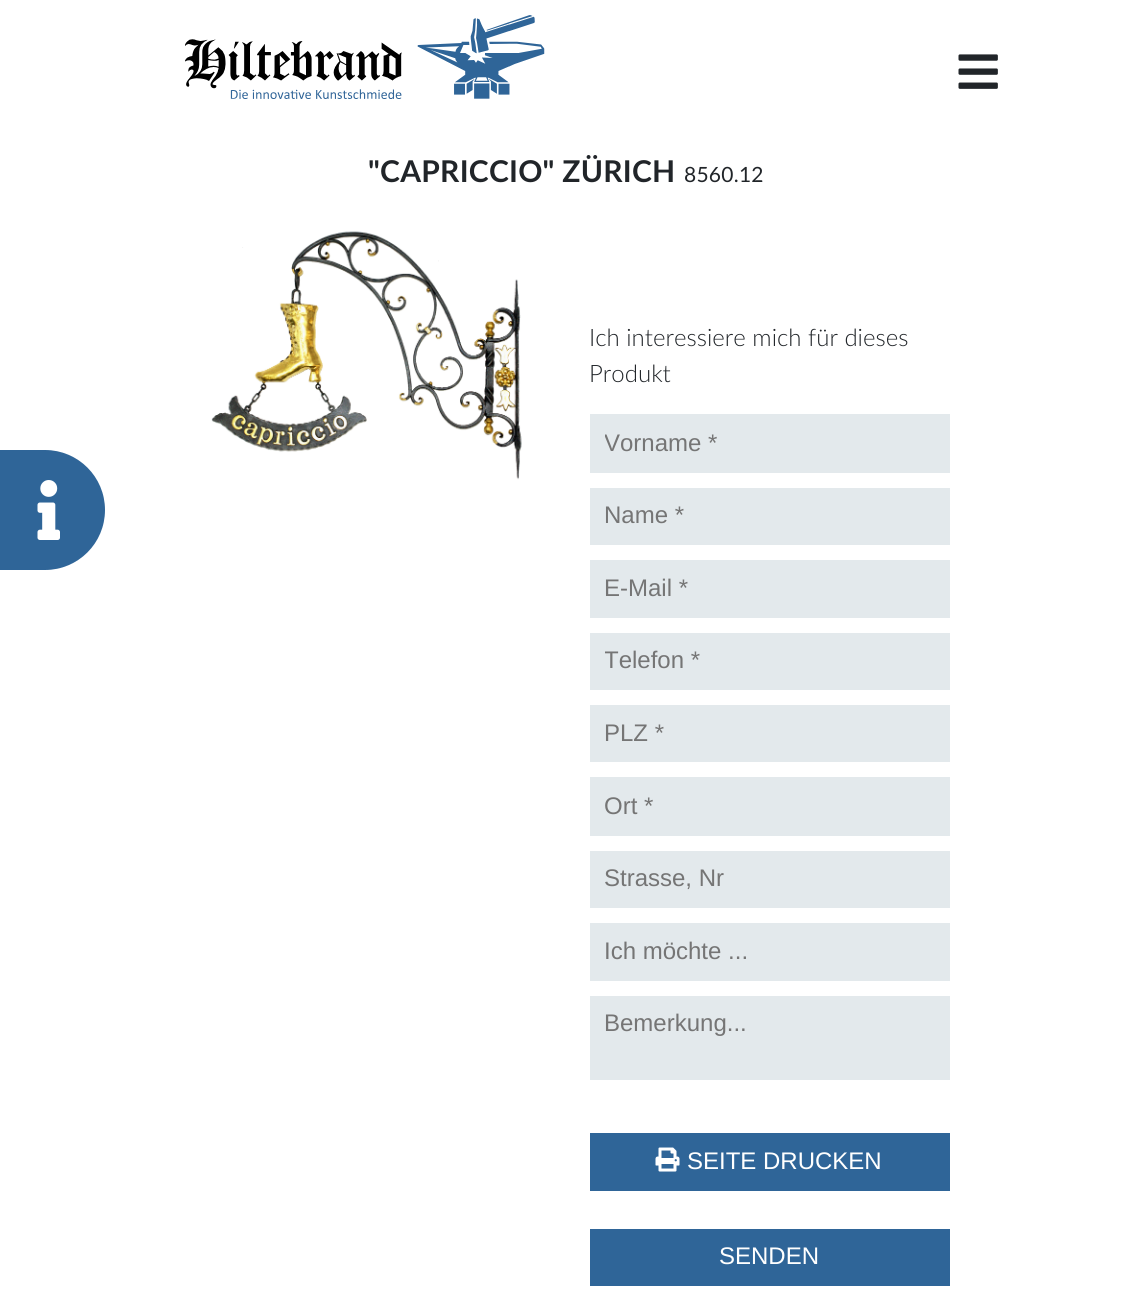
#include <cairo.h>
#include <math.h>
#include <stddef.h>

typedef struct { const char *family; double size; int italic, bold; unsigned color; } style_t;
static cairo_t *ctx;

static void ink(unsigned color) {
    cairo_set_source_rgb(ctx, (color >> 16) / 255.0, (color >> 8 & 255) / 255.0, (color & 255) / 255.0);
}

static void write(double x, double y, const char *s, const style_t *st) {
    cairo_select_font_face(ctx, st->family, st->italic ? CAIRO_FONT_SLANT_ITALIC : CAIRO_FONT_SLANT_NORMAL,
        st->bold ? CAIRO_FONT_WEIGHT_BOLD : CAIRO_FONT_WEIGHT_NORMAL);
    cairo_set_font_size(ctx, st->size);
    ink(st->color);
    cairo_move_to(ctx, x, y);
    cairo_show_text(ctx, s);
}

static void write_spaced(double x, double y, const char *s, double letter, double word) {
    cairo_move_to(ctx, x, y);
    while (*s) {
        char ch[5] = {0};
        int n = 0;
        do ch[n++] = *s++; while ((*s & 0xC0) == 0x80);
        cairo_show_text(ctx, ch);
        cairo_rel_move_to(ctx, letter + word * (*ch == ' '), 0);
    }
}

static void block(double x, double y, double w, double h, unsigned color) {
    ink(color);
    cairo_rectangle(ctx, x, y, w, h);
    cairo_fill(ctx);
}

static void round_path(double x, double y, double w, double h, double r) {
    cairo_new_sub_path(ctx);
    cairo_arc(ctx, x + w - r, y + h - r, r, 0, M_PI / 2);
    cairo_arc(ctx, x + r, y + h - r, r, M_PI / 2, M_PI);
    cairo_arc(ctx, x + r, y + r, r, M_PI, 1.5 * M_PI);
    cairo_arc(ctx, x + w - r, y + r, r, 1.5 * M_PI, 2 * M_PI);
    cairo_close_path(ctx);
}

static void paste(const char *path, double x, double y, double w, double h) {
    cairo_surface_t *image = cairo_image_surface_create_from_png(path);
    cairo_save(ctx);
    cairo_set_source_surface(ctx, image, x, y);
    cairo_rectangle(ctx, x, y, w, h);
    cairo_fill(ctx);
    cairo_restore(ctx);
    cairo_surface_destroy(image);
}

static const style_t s1 = {"Lato Light", 24, 0, 0, 0x212529};
static const style_t s2 = {"Liberation Sans", 24, 0, 0, 0x757575};
static const style_t s3 = {"Liberation Sans", 24, 0, 0, 0xffffff};

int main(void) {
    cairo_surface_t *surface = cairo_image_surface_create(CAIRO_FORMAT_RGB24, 1132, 1296);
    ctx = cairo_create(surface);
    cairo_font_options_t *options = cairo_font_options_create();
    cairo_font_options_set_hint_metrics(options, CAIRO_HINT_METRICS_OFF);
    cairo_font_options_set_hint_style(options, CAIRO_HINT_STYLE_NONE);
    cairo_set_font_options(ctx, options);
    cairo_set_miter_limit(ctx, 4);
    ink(0xffffff);
    cairo_paint(ctx);
    paste("pic1.png", 185, 15, 360, 84);
    paste("pic2.png", 958, 54, 40, 35);
    ink(0x2f6598);
    round_path(-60, 450, 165, 120, 60);
    cairo_fill(ctx);
    paste("pic3.png", 37, 480, 23, 60);
    cairo_select_font_face(ctx, "Lato", CAIRO_FONT_SLANT_NORMAL, CAIRO_FONT_WEIGHT_BOLD);
    cairo_set_font_size(ctx, 30);
    ink(0x212529);
    write_spaced(368, 182, "\"CAPRICCIO\" ZÜRICH", 0.25, 0);
    cairo_select_font_face(ctx, "Lato", CAIRO_FONT_SLANT_NORMAL, CAIRO_FONT_WEIGHT_NORMAL);
    cairo_set_font_size(ctx, 21);
    write_spaced(684, 182, "8560.12", 0.25, 0);
    paste("pic4.png", 211, 231, 311, 249);
    write(589, 346, "Ich interessiere mich für dieses", &s1);
    write(589, 382, "Produkt", &s1);
    block(590, 414, 360, 59, 0xe3e9ec);
    cairo_save(ctx);
    cairo_rectangle(ctx, 605, 429, 330, 27);
    cairo_clip(ctx);
    write(604, 451, "Vorname *", &s2);
    cairo_restore(ctx);
    block(590, 488, 360, 57, 0xe3e9ec);
    write(604, 523, "Name *", &s2);
    block(590, 560, 360, 58, 0xe3e9ec);
    write(604, 596, "E-Mail *", &s2);
    block(590, 633, 360, 57, 0xe3e9ec);
    cairo_save(ctx);
    cairo_rectangle(ctx, 605, 648, 330, 27);
    cairo_clip(ctx);
    write(604, 668, "Telefon *", &s2);
    cairo_restore(ctx);
    block(590, 705, 360, 57, 0xe3e9ec);
    write(604, 741, "PLZ *", &s2);
    block(590, 777, 360, 59, 0xe3e9ec);
    write(604, 814, "Ort *", &s2);
    block(590, 851, 360, 57, 0xe3e9ec);
    write(604, 886, "Strasse, Nr", &s2);
    block(590, 923, 360, 58, 0xe3e9ec);
    write(604, 959, "Ich möchte ...", &s2);
    block(590, 996, 360, 84, 0xe3e9ec);
    write(604, 1031, "Bemerkung...", &s2);
    block(590, 1133, 360, 58, 0x2f6598);
    paste("pic5.png", 655, 1147, 25, 25);
    write(687, 1169, "SEITE DRUCKEN", &s3);
    block(590, 1229, 360, 57, 0x2f6598);
    write(719, 1264, "SENDEN", &s3);
    cairo_surface_write_to_png(surface, "screenshot.png");
    cairo_font_options_destroy(options);
    cairo_destroy(ctx);
    cairo_surface_destroy(surface);
    return 0;
}
